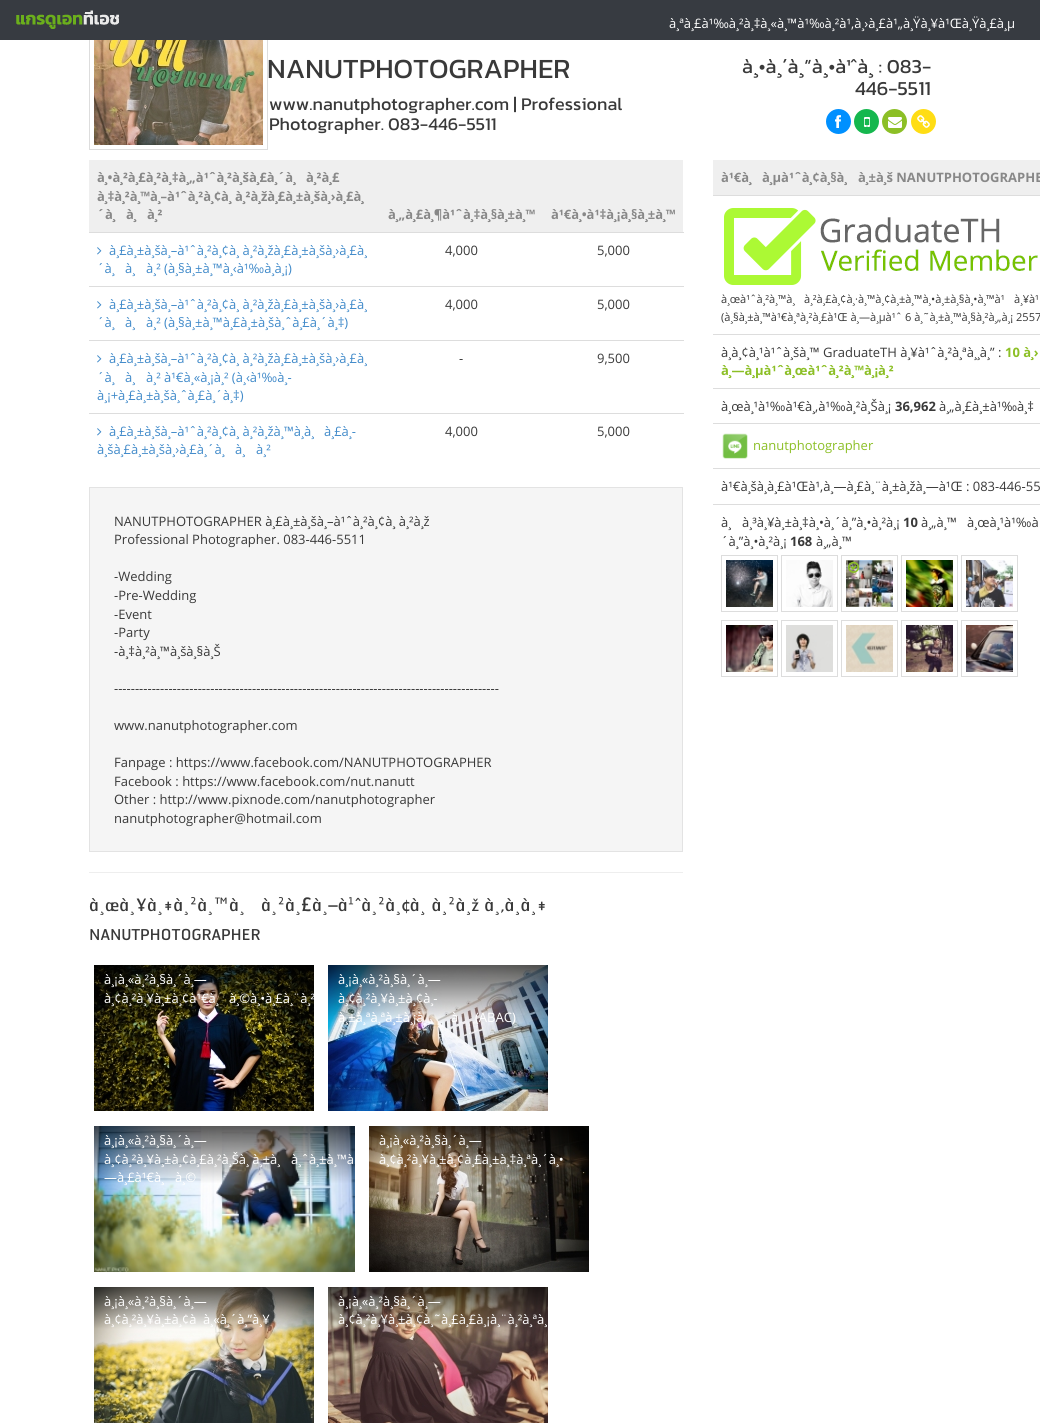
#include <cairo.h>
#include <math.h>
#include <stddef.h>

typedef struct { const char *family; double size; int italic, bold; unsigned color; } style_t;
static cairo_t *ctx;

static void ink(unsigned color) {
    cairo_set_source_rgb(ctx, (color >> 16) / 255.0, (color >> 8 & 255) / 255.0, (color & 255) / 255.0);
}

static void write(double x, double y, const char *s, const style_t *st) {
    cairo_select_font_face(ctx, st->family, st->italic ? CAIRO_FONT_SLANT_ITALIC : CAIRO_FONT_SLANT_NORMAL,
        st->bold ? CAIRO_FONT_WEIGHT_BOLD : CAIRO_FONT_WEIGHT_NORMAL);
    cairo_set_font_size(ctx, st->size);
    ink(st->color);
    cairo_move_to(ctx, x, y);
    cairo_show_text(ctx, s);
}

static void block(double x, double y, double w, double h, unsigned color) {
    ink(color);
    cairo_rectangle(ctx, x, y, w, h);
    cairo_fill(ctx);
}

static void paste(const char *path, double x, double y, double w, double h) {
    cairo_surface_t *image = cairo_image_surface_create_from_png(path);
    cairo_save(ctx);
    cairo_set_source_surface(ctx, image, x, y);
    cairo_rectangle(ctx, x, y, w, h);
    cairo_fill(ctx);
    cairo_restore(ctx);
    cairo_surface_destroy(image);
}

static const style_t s1 = {"Open Sans", 13, 0, 0, 0xffffff};
static const style_t s2 = {"Kanit", 28, 0, 0, 0x393939};
static const style_t s3 = {"Kanit", 18, 0, 0, 0x393939};
static const style_t s4 = {"Kanit", 20, 0, 0, 0x393939};
static const style_t s5 = {"Open Sans", 13, 0, 1, 0x888888};
static const style_t s6 = {"Open Sans", 13, 0, 0, 0x428bca};
static const style_t s7 = {"Open Sans", 13, 0, 0, 0x393939};
static const style_t s8 = {"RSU", 20, 0, 0, 0x393939};
static const style_t s9 = {"Open Sans", 11.05, 0, 0, 0x393939};
static const style_t s10 = {"Open Sans", 13, 0, 1, 0x8cbf26};
static const style_t s11 = {"Open Sans", 13, 0, 1, 0x393939};
static const style_t s12 = {"Open Sans", 13, 0, 0, 0x8cbf26};

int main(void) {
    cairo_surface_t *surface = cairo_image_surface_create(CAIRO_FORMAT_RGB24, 1040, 1423);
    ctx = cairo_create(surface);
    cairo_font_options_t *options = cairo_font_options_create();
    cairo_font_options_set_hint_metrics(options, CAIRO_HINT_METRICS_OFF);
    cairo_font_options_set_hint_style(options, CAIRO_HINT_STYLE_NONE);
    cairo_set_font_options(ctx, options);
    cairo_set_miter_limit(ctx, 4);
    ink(0xffffff);
    cairo_paint(ctx);
    cairo_rectangle(ctx, 89.5, -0.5, 178, 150);
    ink(0xdddddd);
    cairo_set_line_width(ctx, 1);
    cairo_stroke(ctx);
    block(0, 0, 1040, 40, 0x373b41);
    paste("pic1.png", 16, 10, 103, 19);
    write(669, 28, "à¸ªà¸£à¹‰à¸²à¸‡à¸«à¸™à¹‰à¸²à¹‚à¸›à¸£à¹„à¸Ÿà¸¥à¹Œà¸Ÿà¸£à¸µ", &s1);
    paste("pic2.png", 94, 40, 169, 105);
    write(267, 78, "NANUTPHOTOGRAPHER", &s2);
    write(269, 110, "www.nanutphotographer.com | Professional", &s3);
    write(269, 130, "Photographer. 083-446-5511", &s3);
    write(742, 73, "à¸•à¸´à¸”à¸•à¹ˆà¸ : 083-", &s4);
    write(855, 95, "446-5511", &s4);
    ink(0x0090ff);
    cairo_new_path(ctx);
    cairo_arc(ctx, 838.5, 121.5, 12.5, 0, 2 * M_PI);
    cairo_fill(ctx);
    paste("pic3.png", 835, 115, 6, 13);
    ink(0x15b74e);
    cairo_arc(ctx, 866.5, 121.5, 12.5, 0, 2 * M_PI);
    cairo_fill(ctx);
    paste("pic4.png", 864, 117, 6, 10);
    ink(0x8cbf26);
    cairo_arc(ctx, 894.5, 121.5, 12.5, 0, 2 * M_PI);
    cairo_fill(ctx);
    paste("pic5.png", 888, 117, 14, 11);
    ink(0xffdd14);
    cairo_arc(ctx, 923.5, 121.5, 12.5, 0, 2 * M_PI);
    cairo_fill(ctx);
    paste("pic6.png", 917, 115, 13, 13);
    block(89, 160, 594, 72, 0xefefef);
    write(97, 182, "à¸•à¸²à¸£à¸²à¸‡à¸„à¹ˆà¸²à¸šà¸£à¸´à¸", &s5);
    write(306, 182, "à¸²à¸£", &s5);
    write(97, 201, "à¸‡à¸²à¸™à¸–à¹ˆà¸²à¸¢à¸ à¸²à¸žà¸£à¸±à¸šà¸›à¸£à¸", &s5);
    write(97, 219, "´à¸", &s5);
    write(126, 219, "à¸", &s5);
    write(147, 219, "à¸²", &s5);
    write(388, 219, "à¸„à¸£à¸¶à¹ˆà¸‡à¸§à¸±à¸™", &s5);
    write(551, 219, "à¹€à¸•à¹‡à¸¡à¸§à¸±à¸™", &s5);
    paste("pic7.png", 97, 247, 5, 8);
    write(109, 255, "à¸£à¸±à¸šà¸–à¹ˆà¸²à¸¢à¸ à¸²à¸žà¸£à¸±à¸šà¸›à¸£à¸", &s6);
    write(97, 273, "´à¸", &s6);
    write(125, 273, "à¸", &s6);
    write(146, 273, "à¸² (à¸§à¸±à¸™à¸‹à¹‰à¸à¸¡)", &s6);
    write(445, 255, "4,000", &s7);
    block(89, 232, 595, 1, 0xdddddd);
    write(597, 255, "5,000", &s7);
    paste("pic7.png", 97, 301, 5, 8);
    write(109, 309, "à¸£à¸±à¸šà¸–à¹ˆà¸²à¸¢à¸ à¸²à¸žà¸£à¸±à¸šà¸›à¸£à¸", &s6);
    write(97, 327, "´à¸", &s6);
    write(125, 327, "à¸", &s6);
    write(146, 327, "à¸² (à¸§à¸±à¸™à¸£à¸±à¸šà¸ˆà¸£à¸´à¸‡)", &s6);
    write(445, 309, "4,000", &s7);
    block(89, 286, 595, 1, 0xdddddd);
    write(597, 309, "5,000", &s7);
    paste("pic7.png", 97, 355, 5, 8);
    write(109, 363, "à¸£à¸±à¸šà¸–à¹ˆà¸²à¸¢à¸ à¸²à¸žà¸£à¸±à¸šà¸›à¸£à¸", &s6);
    write(97, 382, "´à¸", &s6);
    write(125, 382, "à¸", &s6);
    write(146, 382, "à¸² à¹€à¸«à¸¡à¸² (à¸‹à¹‰à¸-", &s6);
    write(97, 400, "à¸¡+à¸£à¸±à¸šà¸ˆà¸£à¸´à¸‡)", &s6);
    write(459, 363, "-", &s7);
    block(89, 340, 595, 1, 0xdddddd);
    write(597, 363, "9,500", &s7);
    paste("pic7.png", 97, 428, 5, 8);
    write(109, 436, "à¸£à¸±à¸šà¸–à¹ˆà¸²à¸¢à¸ à¸²à¸žà¸™à¸à¸", &s6);
    write(324, 436, "à¸£à¸-", &s6);
    write(97, 454, "à¸šà¸£à¸±à¸šà¸›à¸£à¸´à¸", &s6);
    write(235, 454, "à¸", &s6);
    write(256, 454, "à¸²", &s6);
    write(445, 436, "4,000", &s7);
    block(89, 413, 595, 1, 0xdddddd);
    write(597, 436, "5,000", &s7);
    ink(0xf5f5f5);
    cairo_rectangle(ctx, 89.5, 487.5, 593, 364);
    cairo_fill_preserve(ctx);
    ink(0xe3e3e3);
    cairo_stroke(ctx);
    write(114, 526, "NANUTPHOTOGRAPHER à¸£à¸±à¸šà¸–à¹ˆà¸²à¸¢à¸ à¸²à¸ž", &s7);
    write(114, 544, "Professional Photographer. 083-446-5511", &s7);
    write(114, 581, "-Wedding", &s7);
    write(114, 600, "-Pre-Wedding", &s7);
    write(114, 619, "-Event", &s7);
    write(114, 637, "-Party", &s7);
    write(114, 656, "-à¸‡à¸²à¸™à¸šà¸§à¸Š", &s7);
    write(114, 693, "--------------------------------------------------------------------------------------------", &s7);
    write(114, 730, "www.nanutphotographer.com", &s7);
    write(114, 767, "Fanpage : https://www.facebook.com/NANUTPHOTOGRAPHER", &s7);
    write(114, 786, "Facebook : https://www.facebook.com/nut.nanutt", &s7);
    write(114, 804, "Other : http://www.pixnode.com/nanutphotographer", &s7);
    write(114, 823, "nanutphotographer@hotmail.com", &s7);
    block(89, 872, 594, 1, 0xeeeeee);
    write(89, 911, "à¸œà¸¥à¸‡à¸²à¸™à¸", &s8);
    write(261, 911, "à¸²à¸£à¸–à¹ˆà¸²à¸¢à¸ à¸²à¸ž à¸‚à¸à¸‡", &s8);
    write(89, 940, "NANUTPHOTOGRAPHER", &s8);
    paste("pic8.png", 94, 965, 220, 146);
    write(104, 984, "à¸¡à¸«à¸²à¸§à¸´à¸—", &s1);
    write(104, 1003, "à¸¢à¸²à¸¥à¸±à¸¢à¹€à¸", &s1);
    cairo_save(ctx);
    cairo_rectangle(ctx, 94, 965, 220, 146);
    cairo_clip(ctx);
    write(229, 1003, "à¸©à¸•à¸£à¸¨à¸²", &s1);
    cairo_restore(ctx);
    paste("pic9.png", 328, 965, 220, 146);
    write(338, 984, "à¸¡à¸«à¸²à¸§à¸´à¸—", &s1);
    write(338, 1003, "à¸¢à¸²à¸¥à¸±à¸¢à¸-", &s1);
    write(338, 1022, "à¸±à¸ªà¸ªà¸±à¸¡à", &s1);
    write(451, 1022, "à", &s1);
    write(475, 1022, "(ABAC)", &s1);
    paste("pic10.png", 94, 1126, 261, 146);
    write(104, 1145, "à¸¡à¸«à¸²à¸§à¸´à¸—", &s1);
    write(104, 1164, "à¸¢à¸²à¸¥à¸±à¸¢à¸£à¸²à¸Šà¸ à¸±à¸", &s1);
    write(291, 1164, "à¸ˆà¸±à¸™à", &s1);
    write(104, 1182, "—à¸£à¹€à¸", &s1);
    write(175, 1182, "à¸©", &s1);
    paste("pic11.png", 369, 1126, 220, 146);
    write(379, 1145, "à¸¡à¸«à¸²à¸§à¸´à¸—", &s1);
    write(379, 1164, "à¸¢à¸²à¸¥à¸±à¸¢à¸£à¸±à¸‡à¸ªà¸´à¸•", &s1);
    paste("pic12.png", 94, 1287, 220, 136);
    write(104, 1306, "à¸¡à¸«à¸²à¸§à¸´à¸—", &s1);
    write(104, 1324, "à¸¢à¸²à¸¥à¸±à¸¢à", &s1);
    write(203, 1324, "à¸«à¸´à¸”à¸¥", &s1);
    paste("pic13.png", 328, 1287, 220, 136);
    write(338, 1306, "à¸¡à¸«à¸²à¸§à¸´à¸—", &s1);
    write(338, 1324, "à¸¢à¸²à¸¥à¸±à¸¢à¸˜à¸£à¸£à¸¡à¸¨à¸²à¸ªà¸", &s1);
    block(713, 160, 327, 35, 0xefefef);
    write(721, 182, "à¹€à¸", &s5);
    write(762, 182, "à¸µà¹ˆà¸¢à¸§à¸", &s5);
    write(858, 182, "à¸±à¸š NANUTPHOTOGRAPHE", &s5);
    block(713, 195, 327, 1, 0xdddddd);
    paste("pic14.png", 724, 208, 314, 77);
    write(721, 303, "à¸œà¹ˆà¸²à¸™à¸", &s9);
    write(804, 303, "à¸²à¸£à¸¢à¸·à¸™à¸¢à¸±à¸™à¸•à¸±à¸§à¸•à¸™à¹", &s9);
    write(1014, 303, "à¸¥à¹", &s9);
    write(721, 321, "(à¸§à¸±à¸™à¹€à¸ªà¸²à¸£à¹Œ à¸—à¸µà¹ˆ 6 à¸˜à¸±à¸™à¸§à¸²à¸„à¸¡ 2557", &s9);
    block(713, 334, 327, 1, 0xdddddd);
    write(721, 357, "à¸à¸¢à¸¹à¹ˆà¸šà¸™ GraduateTH à¸¥à¹ˆà¸²à¸ªà¸¸à¸” :", &s7);
    write(1005, 357, "10 à¸›", &s10);
    write(721, 375, "à¸—à¸µà¹ˆà¸œà¹ˆà¸²à¸™à¸¡à¸²", &s10);
    block(713, 388, 327, 1, 0xdddddd);
    write(721, 411, "à¸œà¸¹à¹‰à¹€à¸‚à¹‰à¸²à¸Šà¸¡", &s7);
    write(895, 411, "36,962", &s11);
    write(939, 411, "à¸„à¸£à¸±à¹‰à¸‡", &s7);
    block(713, 423, 327, 1, 0xdddddd);
    paste("pic15.png", 722, 433, 26, 26);
    write(753, 450, "nanutphotographer", &s12);
    block(713, 468, 327, 1, 0xdddddd);
    write(721, 491, "à¹€à¸šà¸à¸£à¹Œà¹‚à¸—à¸£à¸¨à¸±à¸žà¸—à¹Œ : 083-446-55", &s7);
    block(713, 504, 327, 1, 0xdddddd);
    write(721, 527, "à¸", &s7);
    write(742, 527, "à¸³à¸¥à¸±à¸‡à¸•à¸´à¸”à¸•à¸²à¸¡", &s7);
    write(903, 527, "10", &s11);
    write(921, 527, "à¸„à¸™", &s7);
    write(967, 527, "à¸œà¸¹à¹‰à", &s7);
    write(721, 546, "´à¸”à¸•à¸²à¸¡", &s7);
    write(790, 546, "168", &s11);
    write(816, 546, "à¸„à¸™", &s7);
    cairo_rectangle(ctx, 721.5, 555.5, 56, 56);
    ink(0xdddddd);
    cairo_stroke(ctx);
    paste("pic16.png", 726, 560, 47, 47);
    cairo_rectangle(ctx, 781.5, 555.5, 56, 56);
    cairo_stroke(ctx);
    paste("pic17.png", 786, 560, 47, 47);
    cairo_rectangle(ctx, 841.5, 555.5, 56, 56);
    cairo_stroke(ctx);
    paste("pic18.png", 846, 560, 47, 47);
    paste("pic19.png", 848, 561, 12, 12);
    cairo_rectangle(ctx, 901.5, 555.5, 56, 56);
    cairo_stroke(ctx);
    paste("pic20.png", 906, 560, 47, 47);
    cairo_rectangle(ctx, 961.5, 555.5, 56, 56);
    cairo_stroke(ctx);
    paste("pic21.png", 966, 560, 47, 47);
    cairo_rectangle(ctx, 721.5, 620.5, 56, 56);
    cairo_stroke(ctx);
    paste("pic22.png", 726, 625, 47, 47);
    cairo_rectangle(ctx, 781.5, 620.5, 56, 56);
    cairo_stroke(ctx);
    paste("pic23.png", 786, 625, 47, 47);
    cairo_rectangle(ctx, 841.5, 620.5, 56, 56);
    cairo_stroke(ctx);
    paste("pic24.png", 846, 625, 47, 47);
    cairo_rectangle(ctx, 901.5, 620.5, 56, 56);
    cairo_stroke(ctx);
    paste("pic25.png", 906, 625, 47, 47);
    cairo_rectangle(ctx, 961.5, 620.5, 56, 56);
    cairo_stroke(ctx);
    paste("pic26.png", 966, 625, 47, 47);
    cairo_surface_write_to_png(surface, "screenshot.png");
    cairo_font_options_destroy(options);
    cairo_destroy(ctx);
    cairo_surface_destroy(surface);
    return 0;
}
